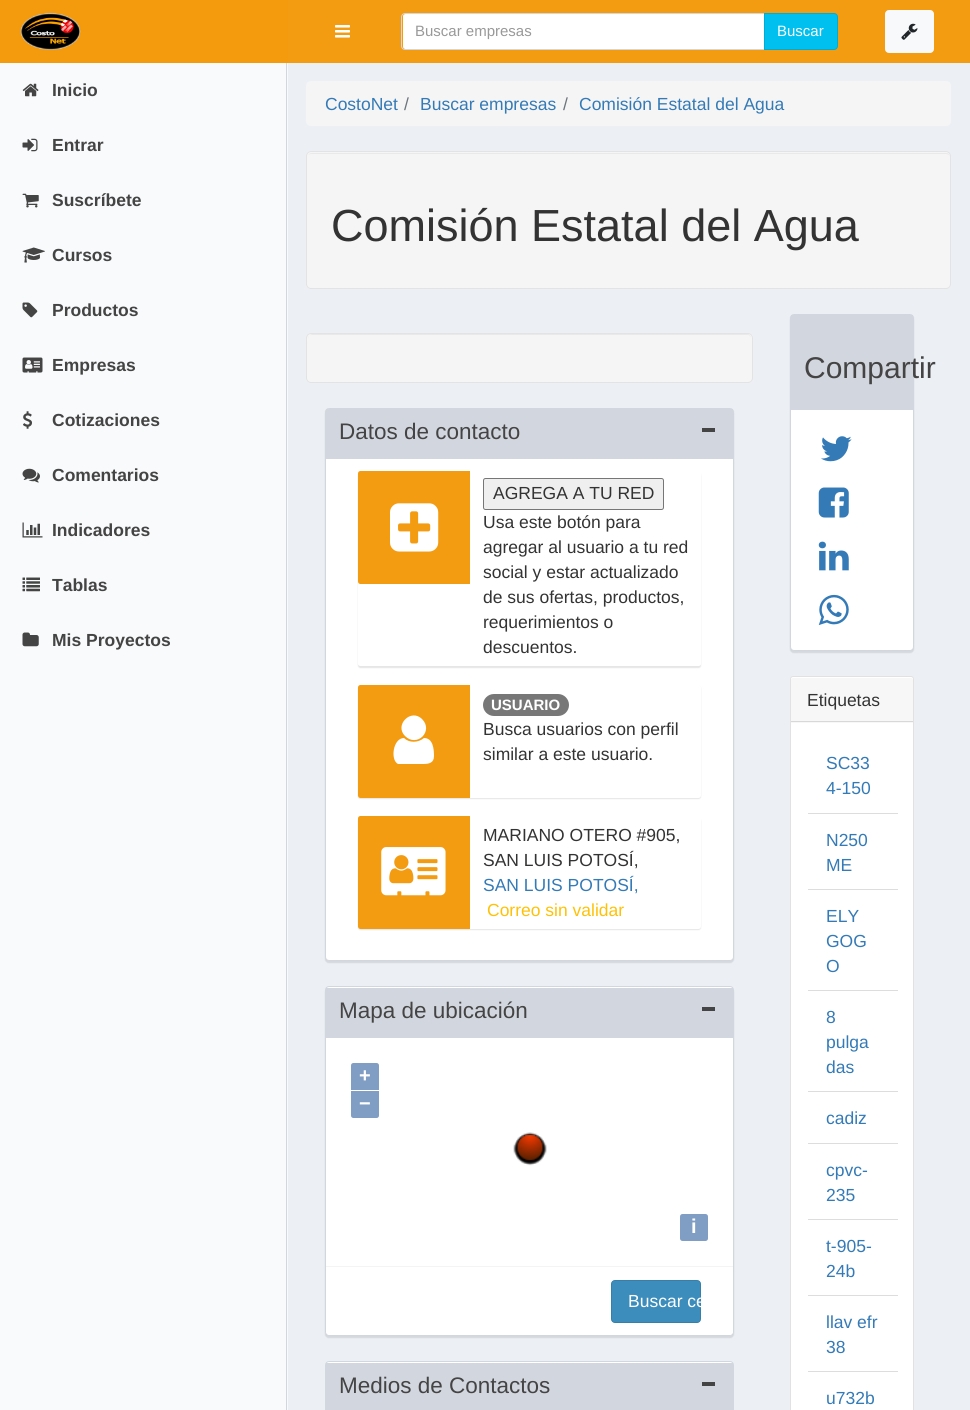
#include <cairo.h>
#include <math.h>
#include <stddef.h>

typedef struct { const char *family; double size; int italic, bold; unsigned color; } style_t;
static cairo_t *ctx;

static void ink(unsigned color) {
    cairo_set_source_rgb(ctx, (color >> 16) / 255.0, (color >> 8 & 255) / 255.0, (color & 255) / 255.0);
}

static void write(double x, double y, const char *s, const style_t *st) {
    cairo_select_font_face(ctx, st->family, st->italic ? CAIRO_FONT_SLANT_ITALIC : CAIRO_FONT_SLANT_NORMAL,
        st->bold ? CAIRO_FONT_WEIGHT_BOLD : CAIRO_FONT_WEIGHT_NORMAL);
    cairo_set_font_size(ctx, st->size);
    ink(st->color);
    cairo_move_to(ctx, x, y);
    cairo_show_text(ctx, s);
}

static void block(double x, double y, double w, double h, unsigned color) {
    ink(color);
    cairo_rectangle(ctx, x, y, w, h);
    cairo_fill(ctx);
}

static void round_path(double x, double y, double w, double h, double r) {
    cairo_new_sub_path(ctx);
    cairo_arc(ctx, x + w - r, y + h - r, r, 0, M_PI / 2);
    cairo_arc(ctx, x + r, y + h - r, r, M_PI / 2, M_PI);
    cairo_arc(ctx, x + r, y + r, r, M_PI, 1.5 * M_PI);
    cairo_arc(ctx, x + w - r, y + r, r, 1.5 * M_PI, 2 * M_PI);
    cairo_close_path(ctx);
}

static void blur_box(double x, double y, double w, double h, double r, double blur, double alpha) {
    cairo_push_group_with_content(ctx, CAIRO_CONTENT_ALPHA);
    cairo_set_operator(ctx, CAIRO_OPERATOR_SOURCE);
    for (int i = 15; i >= -15 && fmin(w, h) + blur * i / 3 > 0; i -= 2) {
        double e = blur * i / 6;
        cairo_set_source_rgba(ctx, 0, 0, 0, alpha * erfc((i - 1) / 8.5) / 2);
        round_path(x - e, y - e, w + 2 * e, h + 2 * e, fmax(0, fmin(r + e + blur * .6, fmin(w, h) / 2 + e)));
        cairo_fill(ctx);
    }
    cairo_pattern_t *soft = cairo_pop_group(ctx);
    cairo_mask(ctx, soft);
    cairo_pattern_destroy(soft);
}

static void paste(const char *path, double x, double y, double w, double h) {
    cairo_surface_t *image = cairo_image_surface_create_from_png(path);
    cairo_save(ctx);
    cairo_set_source_surface(ctx, image, x, y);
    cairo_rectangle(ctx, x, y, w, h);
    cairo_fill(ctx);
    cairo_restore(ctx);
    cairo_surface_destroy(image);
}

static const style_t s1 = {"Liberation Sans", 15, 0, 0, 0x999999};
static const style_t s2 = {"Liberation Sans", 15, 0, 0, 0xffffff};
static const style_t s3 = {"Liberation Sans", 17.5, 0, 1, 0x444444};
static const style_t s4 = {"Liberation Sans", 17.5, 0, 0, 0x337ab7};
static const style_t s5 = {"Liberation Sans", 17.5, 0, 0, 0x6c757d};
static const style_t s6 = {"Liberation Sans", 45, 0, 0, 0x333333};
static const style_t s7 = {"Liberation Sans", 22.5, 0, 0, 0x444444};
static const style_t s8 = {"Liberation Sans", 17.5, 0, 0, 0x333333};
static const style_t s9 = {"Liberation Sans", 15, 0, 1, 0xffffff};
static const style_t s10 = {"Liberation Sans", 17.5, 0, 0, 0xffc107};
static const style_t s11 = {"Liberation Sans", 20, 0, 1, 0xffffff};
static const style_t s12 = {"Liberation Sans", 17.5, 0, 0, 0xffffff};
static const style_t s13 = {"Liberation Sans", 30, 0, 0, 0x444444};

int main(void) {
    cairo_surface_t *surface = cairo_image_surface_create(CAIRO_FORMAT_RGB24, 970, 1410);
    ctx = cairo_create(surface);
    cairo_font_options_t *options = cairo_font_options_create();
    cairo_font_options_set_hint_metrics(options, CAIRO_HINT_METRICS_OFF);
    cairo_font_options_set_hint_style(options, CAIRO_HINT_STYLE_NONE);
    cairo_set_font_options(ctx, options);
    cairo_set_miter_limit(ctx, 4);
    ink(0xf9fafc);
    cairo_paint(ctx);
    block(0, 0, 288, 63, 0xf39a0d);
    paste("pic1.png", 20, 13, 61, 37);
    block(288, 0, 682, 63, 0xf39c12);
    paste("pic2.png", 335, 25, 15, 13);
    ink(0xffffff);
    cairo_new_path(ctx);
    cairo_move_to(ctx, 405.5, 14);
    cairo_line_to(ctx, 764, 14);
    cairo_line_to(ctx, 764, 49);
    cairo_line_to(ctx, 405.5, 49);
    cairo_curve_to(ctx, 404, 49, 403, 48, 403, 46.5);
    cairo_line_to(ctx, 403, 16.5);
    cairo_curve_to(ctx, 403, 15, 404, 14, 405.5, 14);
    cairo_close_path(ctx);
    cairo_fill(ctx);
    cairo_new_path(ctx);
    cairo_move_to(ctx, 405, 13.5);
    cairo_line_to(ctx, 764.5, 13.5);
    cairo_line_to(ctx, 764.5, 49.5);
    cairo_line_to(ctx, 405, 49.5);
    cairo_curve_to(ctx, 403, 49.5, 401.5, 48, 401.5, 46);
    cairo_line_to(ctx, 401.5, 17);
    cairo_curve_to(ctx, 401.5, 15, 403, 13.5, 405, 13.5);
    cairo_close_path(ctx);
    ink(0xd2d6de);
    cairo_set_line_width(ctx, 1);
    cairo_stroke(ctx);
    write(415, 36, "Buscar empresas", &s1);
    ink(0x00c0ef);
    cairo_new_path(ctx);
    cairo_move_to(ctx, 764.5, 13.5);
    cairo_line_to(ctx, 834, 13.5);
    cairo_curve_to(ctx, 836, 13.5, 837.5, 15, 837.5, 17);
    cairo_line_to(ctx, 837.5, 46);
    cairo_curve_to(ctx, 837.5, 48, 836, 49.5, 834, 49.5);
    cairo_line_to(ctx, 764.5, 49.5);
    cairo_close_path(ctx);
    cairo_fill_preserve(ctx);
    ink(0x00acd6);
    cairo_stroke(ctx);
    write(777, 36, "Buscar", &s2);
    ink(0xf8f9fa);
    round_path(885, 10, 49, 43, 4);
    cairo_fill(ctx);
    paste("pic3.png", 901, 23, 17, 17);
    block(286, 63, 1, 1347, 0xd2d6de);
    paste("pic4.png", 22, 83, 17, 14);
    write(52, 96, "Inicio", &s3);
    paste("pic5.png", 22, 138, 16, 14);
    write(52, 151, "Entrar", &s3);
    paste("pic6.png", 22, 193, 17, 15);
    write(52, 206, "Suscríbete", &s3);
    paste("pic7.png", 22, 247, 23, 16);
    write(52, 261, "Cursos", &s3);
    paste("pic8.png", 22, 302, 16, 16);
    write(52, 316, "Productos", &s3);
    paste("pic9.png", 22, 357, 21, 16);
    write(52, 371, "Empresas", &s3);
    paste("pic10.png", 23, 411, 9, 18);
    write(52, 426, "Cotizaciones", &s3);
    paste("pic11.png", 22, 468, 18, 15);
    write(52, 481, "Comentarios", &s3);
    paste("pic12.png", 22, 522, 21, 16);
    write(52, 536, "Indicadores", &s3);
    paste("pic13.png", 22, 577, 18, 15);
    write(52, 591, "Tablas", &s3);
    paste("pic14.png", 22, 632, 17, 15);
    write(52, 646, "Mis Proyectos", &s3);
    block(288, 63, 682, 1347, 0xecf0f5);
    ink(0xf5f5f5);
    round_path(306, 81, 645, 45, 5);
    cairo_fill(ctx);
    write(325, 110, "CostoNet", &s4);
    write(404, 110, "/", &s5);
    write(420, 110, "Buscar empresas", &s4);
    write(563, 110, "/", &s5);
    write(579, 110, "Comisión Estatal del Agua", &s4);
    ink(0xf5f5f5);
    round_path(306, 151, 645, 138, 5);
    cairo_fill(ctx);
    ink(0xe9e9e9);
    cairo_new_path(ctx);
    cairo_move_to(ctx, 311, 154);
    cairo_line_to(ctx, 946, 154);
    cairo_curve_to(ctx, 948, 154, 950, 155, 950, 158);
    cairo_curve_to(ctx, 950, 155, 949, 153, 946, 153);
    cairo_line_to(ctx, 312, 153);
    cairo_curve_to(ctx, 309, 153, 308, 155, 308, 158);
    cairo_curve_to(ctx, 308, 155, 309, 154, 311, 154);
    cairo_close_path(ctx);
    cairo_fill(ctx);
    round_path(306.5, 151.5, 644, 137, 4.5);
    ink(0xe3e3e3);
    cairo_stroke(ctx);
    write(331, 241, "Comisión Estatal del Agua", &s6);
    ink(0xf5f5f5);
    round_path(306, 333, 447, 50, 5);
    cairo_fill(ctx);
    ink(0xe9e9e9);
    cairo_new_path(ctx);
    cairo_move_to(ctx, 311, 335);
    cairo_line_to(ctx, 748, 335);
    cairo_curve_to(ctx, 750, 335, 751, 337, 751, 339);
    cairo_curve_to(ctx, 751, 336, 750, 334, 747, 334);
    cairo_line_to(ctx, 312, 334);
    cairo_line_to(ctx, 310, 335);
    cairo_line_to(ctx, 309, 336);
    cairo_line_to(ctx, 308, 339);
    cairo_curve_to(ctx, 308, 337, 309, 335, 311, 335);
    cairo_close_path(ctx);
    cairo_fill(ctx);
    round_path(306.5, 333.5, 446, 49, 4.5);
    ink(0xe3e3e3);
    cairo_stroke(ctx);
    ink(0x000000);
    blur_box(325, 409, 409, 554, 4, 0.5, 0.1);
    ink(0xffffff);
    round_path(325.5, 408.5, 408, 552, 3.5);
    cairo_fill_preserve(ctx);
    ink(0xd2d6de);
    cairo_stroke(ctx);
    block(326, 409, 407, 50, 0xd2d6de);
    write(339, 439, "Datos de contacto", &s7);
    block(702, 428, 13, 4, 0x444444);
    cairo_save(ctx);
    cairo_set_fill_rule(ctx, CAIRO_FILL_RULE_EVEN_ODD);
    cairo_new_path(ctx);
    cairo_move_to(ctx, 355, 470);
    cairo_line_to(ctx, 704, 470);
    cairo_line_to(ctx, 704, 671);
    cairo_line_to(ctx, 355, 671);
    cairo_close_path(ctx);
    cairo_move_to(ctx, 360.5, 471);
    cairo_line_to(ctx, 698.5, 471);
    cairo_curve_to(ctx, 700, 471, 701, 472, 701, 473.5);
    cairo_line_to(ctx, 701, 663.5);
    cairo_curve_to(ctx, 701, 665, 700, 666, 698.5, 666);
    cairo_line_to(ctx, 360.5, 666);
    cairo_curve_to(ctx, 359, 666, 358, 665, 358, 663.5);
    cairo_line_to(ctx, 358, 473.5);
    cairo_curve_to(ctx, 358, 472, 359, 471, 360.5, 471);
    cairo_close_path(ctx);
    cairo_clip(ctx);
    ink(0x000000);
    blur_box(358, 473, 343, 195, 2.5, 0.5, 0.1);
    cairo_restore(ctx);
    ink(0xf39c12);
    cairo_new_path(ctx);
    cairo_move_to(ctx, 360.5, 471);
    cairo_line_to(ctx, 470, 471);
    cairo_line_to(ctx, 470, 584);
    cairo_line_to(ctx, 360.5, 584);
    cairo_curve_to(ctx, 359, 584, 358, 583, 358, 581.5);
    cairo_line_to(ctx, 358, 473.5);
    cairo_curve_to(ctx, 358, 472, 359, 471, 360.5, 471);
    cairo_close_path(ctx);
    cairo_fill(ctx);
    paste("pic15.png", 390, 503, 49, 49);
    ink(0xefefef);
    round_path(483.5, 478.5, 180, 31, 2);
    cairo_fill_preserve(ctx);
    ink(0x767676);
    cairo_stroke(ctx);
    write(493, 499, "AGREGA A TU RED", &s8);
    write(483, 528, "Usa este botón para", &s8);
    write(483, 553, "agregar al usuario a tu red", &s8);
    write(483, 578, "social y estar actualizado", &s8);
    write(483, 603, "de sus ofertas, productos,", &s8);
    write(483, 628, "requerimientos o", &s8);
    write(483, 653, "descuentos.", &s8);
    ink(0x000000);
    blur_box(358, 686, 343, 113, 2.5, 0.5, 0.1);
    ink(0xffffff);
    round_path(358, 685, 343, 113, 2.5);
    cairo_fill(ctx);
    ink(0xf39c12);
    cairo_new_path(ctx);
    cairo_move_to(ctx, 360.5, 685);
    cairo_line_to(ctx, 470, 685);
    cairo_line_to(ctx, 470, 798);
    cairo_line_to(ctx, 360.5, 798);
    cairo_curve_to(ctx, 359, 798, 358, 797, 358, 795.5);
    cairo_line_to(ctx, 358, 687.5);
    cairo_curve_to(ctx, 358, 686, 359, 685, 360.5, 685);
    cairo_close_path(ctx);
    cairo_fill(ctx);
    ink(0xffffff);
    cairo_new_path(ctx);
    cairo_move_to(ctx, 434, 756);
    cairo_curve_to(ctx, 434, 763, 429, 764, 423, 764);
    cairo_line_to(ctx, 398, 764);
    cairo_curve_to(ctx, 390, 760, 393, 738, 404, 738);
    cairo_curve_to(ctx, 409, 743, 418, 743, 424, 738);
    cairo_curve_to(ctx, 433, 738, 434, 749, 434, 756);
    cairo_close_path(ctx);
    cairo_move_to(ctx, 422, 719);
    cairo_curve_to(ctx, 434, 731, 417, 748, 405, 736);
    cairo_curve_to(ctx, 394, 725, 411, 708, 422, 719);
    cairo_close_path(ctx);
    cairo_fill(ctx);
    ink(0x777777);
    round_path(483, 694, 86, 22, 11);
    cairo_fill(ctx);
    write(491, 710, "USUARIO", &s9);
    write(483, 735, "Busca usuarios con perfil", &s8);
    write(483, 760, "similar a este usuario.", &s8);
    ink(0x000000);
    blur_box(358, 818, 343, 112, 2.5, 0.5, 0.1);
    ink(0xffffff);
    round_path(358, 816, 343, 113, 2.5);
    cairo_fill(ctx);
    ink(0xf39c12);
    cairo_new_path(ctx);
    cairo_move_to(ctx, 360.5, 816);
    cairo_line_to(ctx, 470, 816);
    cairo_line_to(ctx, 470, 929);
    cairo_line_to(ctx, 360.5, 929);
    cairo_curve_to(ctx, 359, 929, 358, 928, 358, 926.5);
    cairo_line_to(ctx, 358, 818.5);
    cairo_curve_to(ctx, 358, 817, 359, 816, 360.5, 816);
    cairo_close_path(ctx);
    cairo_fill(ctx);
    paste("pic16.png", 381, 847, 65, 49);
    write(483, 841, "MARIANO OTERO #905,", &s8);
    write(483, 866, "SAN LUIS POTOSÍ,", &s8);
    write(483, 891, "SAN LUIS POTOSÍ,", &s4);
    write(487, 916, "Correo sin validar", &s10);
    ink(0x000000);
    blur_box(325, 988, 409, 350, 4, 0.5, 0.1);
    ink(0xffffff);
    round_path(325.5, 986.5, 408, 349, 3.5);
    cairo_fill_preserve(ctx);
    ink(0xd2d6de);
    cairo_stroke(ctx);
    block(326, 988, 407, 50, 0xd2d6de);
    write(339, 1018, "Mapa de ubicación", &s7);
    block(702, 1007, 13, 4, 0x444444);
    ink(0x809ec4);
    cairo_new_path(ctx);
    cairo_move_to(ctx, 353.5, 1063);
    cairo_line_to(ctx, 376.5, 1063);
    cairo_curve_to(ctx, 378, 1063, 379, 1064, 379, 1065.5);
    cairo_line_to(ctx, 379, 1090);
    cairo_line_to(ctx, 351, 1090);
    cairo_line_to(ctx, 351, 1065.5);
    cairo_curve_to(ctx, 351, 1064, 352, 1063, 353.5, 1063);
    cairo_close_path(ctx);
    cairo_fill(ctx);
    write(359, 1082, "+", &s11);
    ink(0x809ec4);
    cairo_new_path(ctx);
    cairo_move_to(ctx, 351, 1091);
    cairo_line_to(ctx, 379, 1091);
    cairo_line_to(ctx, 379, 1115.5);
    cairo_curve_to(ctx, 379, 1117, 378, 1118, 376.5, 1118);
    cairo_line_to(ctx, 353.5, 1118);
    cairo_curve_to(ctx, 352, 1118, 351, 1117, 351, 1115.5);
    cairo_close_path(ctx);
    cairo_fill(ctx);
    write(359, 1110, "−", &s11);
    ink(0x809ec4);
    round_path(680, 1214, 28, 27, 2.5);
    cairo_fill(ctx);
    write(691, 1233, "i", &s11);
    paste("pic17.png", 513, 1132, 34, 34);
    cairo_new_path(ctx);
    cairo_move_to(ctx, 326, 1266);
    cairo_line_to(ctx, 733, 1266);
    cairo_line_to(ctx, 733, 1331);
    cairo_curve_to(ctx, 733, 1333, 731, 1335, 729, 1335);
    cairo_line_to(ctx, 330, 1335);
    cairo_curve_to(ctx, 328, 1335, 326, 1333, 326, 1331);
    cairo_close_path(ctx);
    cairo_fill(ctx);
    block(326, 1266, 407, 1, 0xf4f4f4);
    ink(0x3c8dbc);
    round_path(611.5, 1280.5, 89, 42, 3.5);
    cairo_fill_preserve(ctx);
    ink(0x367fa9);
    cairo_stroke(ctx);
    write(628, 1307, "Buscar ce", &s12);
    round_path(325.5, 1361.5, 408, 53, 3.5);
    cairo_fill_preserve(ctx);
    ink(0xd2d6de);
    cairo_stroke(ctx);
    block(326, 1363, 407, 47, 0xd2d6de);
    write(339, 1393, "Medios de Contactos", &s7);
    block(702, 1382, 13, 4, 0x444444);
    ink(0x000000);
    blur_box(790, 315, 124, 338, 4, 0.5, 0.1);
    ink(0xffffff);
    round_path(790.5, 314.5, 123, 336, 3.5);
    cairo_fill_preserve(ctx);
    ink(0xd2d6de);
    cairo_stroke(ctx);
    block(791, 315, 122, 95, 0xd2d6de);
    write(804, 378, "Compartir", &s13);
    paste("pic18.png", 821, 436, 31, 26);
    paste("pic19.png", 818, 487, 31, 31);
    paste("pic20.png", 818, 541, 31, 30);
    paste("pic21.png", 818, 594, 31, 31);
    ink(0xffffff);
    round_path(790, 676, 124, 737, 3);
    cairo_fill(ctx);
    round_path(790.5, 676.5, 123, 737, 2.5);
    cairo_set_source_rgba(ctx, 0, 0, 0, 0.12);
    cairo_stroke(ctx);
    ink(0xf7f7f7);
    cairo_new_path(ctx);
    cairo_move_to(ctx, 793, 678);
    cairo_line_to(ctx, 911, 678);
    cairo_curve_to(ctx, 912, 678, 913, 679, 913, 680);
    cairo_line_to(ctx, 913, 723);
    cairo_line_to(ctx, 791, 723);
    cairo_line_to(ctx, 791, 680);
    cairo_curve_to(ctx, 791, 679, 792, 678, 793, 678);
    cairo_close_path(ctx);
    cairo_fill(ctx);
    block(791, 721, 122, 1, 0xd8d8d8);
    write(807, 706, "Etiquetas", &s8);
    write(826, 769, "SC33", &s4);
    write(826, 794, "4-150", &s4);
    block(808, 813, 90, 1, 0xdddddd);
    write(826, 846, "N250", &s4);
    write(826, 871, "ME", &s4);
    block(808, 889, 90, 1, 0xdddddd);
    write(826, 922, "ELY", &s4);
    write(826, 947, "GOG", &s4);
    write(826, 972, "O", &s4);
    block(808, 990, 90, 1, 0xdddddd);
    write(826, 1023, "8", &s4);
    write(826, 1048, "pulga", &s4);
    write(826, 1073, "das", &s4);
    block(808, 1091, 90, 1, 0xdddddd);
    write(826, 1124, "cadiz", &s4);
    block(808, 1143, 90, 1, 0xdddddd);
    write(826, 1176, "cpvc-", &s4);
    write(826, 1201, "235", &s4);
    block(808, 1219, 90, 1, 0xdddddd);
    write(826, 1252, "t-905-", &s4);
    write(826, 1277, "24b", &s4);
    block(808, 1295, 90, 1, 0xdddddd);
    write(826, 1328, "llav efr", &s4);
    write(826, 1353, "38", &s4);
    block(808, 1371, 90, 1, 0xdddddd);
    write(826, 1404, "u732b", &s4);
    cairo_surface_write_to_png(surface, "screenshot.png");
    cairo_font_options_destroy(options);
    cairo_destroy(ctx);
    cairo_surface_destroy(surface);
    return 0;
}
